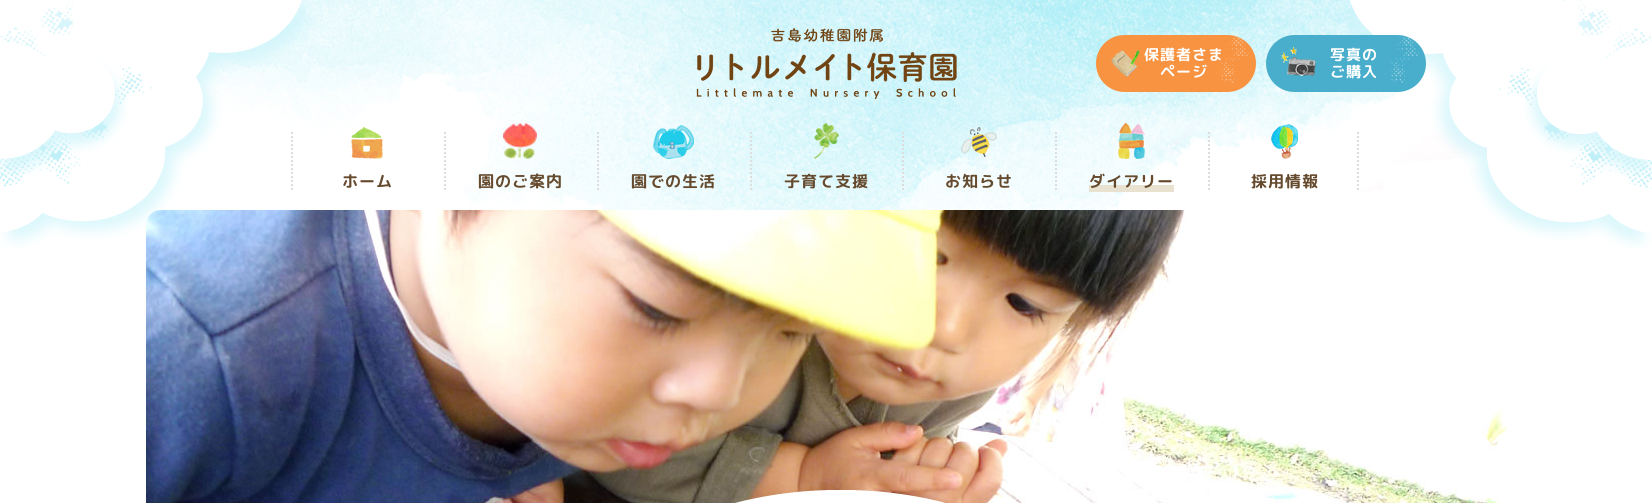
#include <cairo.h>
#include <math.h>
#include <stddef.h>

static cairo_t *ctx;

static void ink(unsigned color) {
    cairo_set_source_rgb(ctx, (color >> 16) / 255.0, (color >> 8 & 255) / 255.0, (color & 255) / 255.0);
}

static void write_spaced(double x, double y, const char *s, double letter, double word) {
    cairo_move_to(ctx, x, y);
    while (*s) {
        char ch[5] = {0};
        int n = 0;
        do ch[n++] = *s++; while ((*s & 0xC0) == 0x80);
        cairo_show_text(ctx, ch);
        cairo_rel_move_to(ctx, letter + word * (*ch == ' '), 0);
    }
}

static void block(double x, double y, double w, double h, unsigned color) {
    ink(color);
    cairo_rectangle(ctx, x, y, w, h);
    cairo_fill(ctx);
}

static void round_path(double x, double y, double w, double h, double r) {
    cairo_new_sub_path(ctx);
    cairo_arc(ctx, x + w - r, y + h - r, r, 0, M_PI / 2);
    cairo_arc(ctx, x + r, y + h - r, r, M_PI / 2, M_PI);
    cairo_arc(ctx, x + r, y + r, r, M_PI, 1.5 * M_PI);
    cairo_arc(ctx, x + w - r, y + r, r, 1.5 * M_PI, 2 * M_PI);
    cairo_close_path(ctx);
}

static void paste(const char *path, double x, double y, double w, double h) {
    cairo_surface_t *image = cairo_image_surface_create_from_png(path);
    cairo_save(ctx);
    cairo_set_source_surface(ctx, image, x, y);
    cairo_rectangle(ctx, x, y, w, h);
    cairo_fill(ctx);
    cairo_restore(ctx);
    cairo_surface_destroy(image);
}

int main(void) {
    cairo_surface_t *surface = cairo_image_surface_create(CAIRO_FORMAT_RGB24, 1652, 503);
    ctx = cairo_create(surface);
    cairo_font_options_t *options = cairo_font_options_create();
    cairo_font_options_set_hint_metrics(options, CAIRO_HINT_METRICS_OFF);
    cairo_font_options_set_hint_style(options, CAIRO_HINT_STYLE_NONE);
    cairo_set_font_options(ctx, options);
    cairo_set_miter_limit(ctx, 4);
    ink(0xffffff);
    cairo_paint(ctx);
    paste("pic1.png", 133, 0, 1354, 268);
    paste("pic15.png", 146, 210, 1360, 293);
    paste("pic2.png", 0, 0, 1652, 249);
    paste("pic3.png", 696, 28, 261, 71);
    ink(0xf79341);
    round_path(1096, 35, 160, 57, 28.5);
    cairo_fill(ctx);
    paste("pic4.png", 1215, 36, 34, 47);
    paste("pic5.png", 1111, 50, 29, 27);
    cairo_select_font_face(ctx, "Rounded Mplus 1c Bold", CAIRO_FONT_SLANT_NORMAL, CAIRO_FONT_WEIGHT_BOLD);
    cairo_set_font_size(ctx, 15);
    ink(0xffffff);
    write_spaced(1144, 60, "保護者さま", 1, 0);
    write_spaced(1160, 77, "ページ", 1, 0);
    ink(0x49aecb);
    round_path(1266, 35, 160, 57, 28.5);
    cairo_fill(ctx);
    paste("pic6.png", 1385, 36, 34, 47);
    paste("pic7.png", 1281, 47, 35, 29);
    ink(0xffffff);
    write_spaced(1330, 60, "写真の", 1, 0);
    write_spaced(1330, 77, "ご購入", 1, 0);
    cairo_new_path(ctx);
    cairo_move_to(ctx, 292, 132);
    cairo_line_to(ctx, 292, 192);
    ink(0xdddddd);
    cairo_set_dash(ctx, (double[]){2, 2}, 2, 0);
    cairo_stroke(ctx);
    paste("pic8.png", 351, 127, 32, 32);
    cairo_set_font_size(ctx, 16);
    ink(0x654a2e);
    write_spaced(342, 187, "ホーム", 1, 0);
    cairo_new_path(ctx);
    cairo_move_to(ctx, 445, 132);
    cairo_line_to(ctx, 445, 192);
    ink(0xdddddd);
    cairo_stroke(ctx);
    paste("pic9.png", 503, 123, 34, 36);
    ink(0x654a2e);
    write_spaced(478, 187, "園のご案内", 1, 0);
    cairo_new_path(ctx);
    cairo_move_to(ctx, 598, 132);
    cairo_line_to(ctx, 598, 192);
    ink(0xdddddd);
    cairo_stroke(ctx);
    paste("pic10.png", 653, 125, 41, 34);
    ink(0x654a2e);
    write_spaced(631, 187, "園での生活", 1, 0);
    cairo_new_path(ctx);
    cairo_move_to(ctx, 751, 132);
    cairo_line_to(ctx, 751, 192);
    ink(0xdddddd);
    cairo_stroke(ctx);
    paste("pic11.png", 814, 123, 25, 36);
    ink(0x654a2e);
    write_spaced(784, 187, "子育て支援", 1, 0);
    cairo_new_path(ctx);
    cairo_move_to(ctx, 903, 132);
    cairo_line_to(ctx, 903, 192);
    ink(0xdddddd);
    cairo_stroke(ctx);
    paste("pic12.png", 961, 127, 36, 30);
    ink(0x654a2e);
    write_spaced(945, 187, "お知らせ", 1, 0);
    cairo_new_path(ctx);
    cairo_move_to(ctx, 1056, 132);
    cairo_line_to(ctx, 1056, 192);
    ink(0xdddddd);
    cairo_stroke(ctx);
    paste("pic13.png", 1118, 123, 27, 36);
    block(1089, 185, 85, 7, 0xeae2d1);
    ink(0x654a2e);
    write_spaced(1089, 187, "ダイアリー", 1, 0);
    cairo_new_path(ctx);
    cairo_move_to(ctx, 1209, 132);
    cairo_line_to(ctx, 1209, 192);
    ink(0xdddddd);
    cairo_stroke(ctx);
    paste("pic14.png", 1271, 124, 27, 35);
    ink(0x654a2e);
    write_spaced(1251, 187, "採用情報", 1, 0);
    cairo_new_path(ctx);
    cairo_move_to(ctx, 1358, 132);
    cairo_line_to(ctx, 1358, 192);
    ink(0xdddddd);
    cairo_stroke(ctx);
    paste("pic16.png", 735, 490, 211, 13);
    cairo_surface_write_to_png(surface, "screenshot.png");
    cairo_font_options_destroy(options);
    cairo_destroy(ctx);
    cairo_surface_destroy(surface);
    return 0;
}
